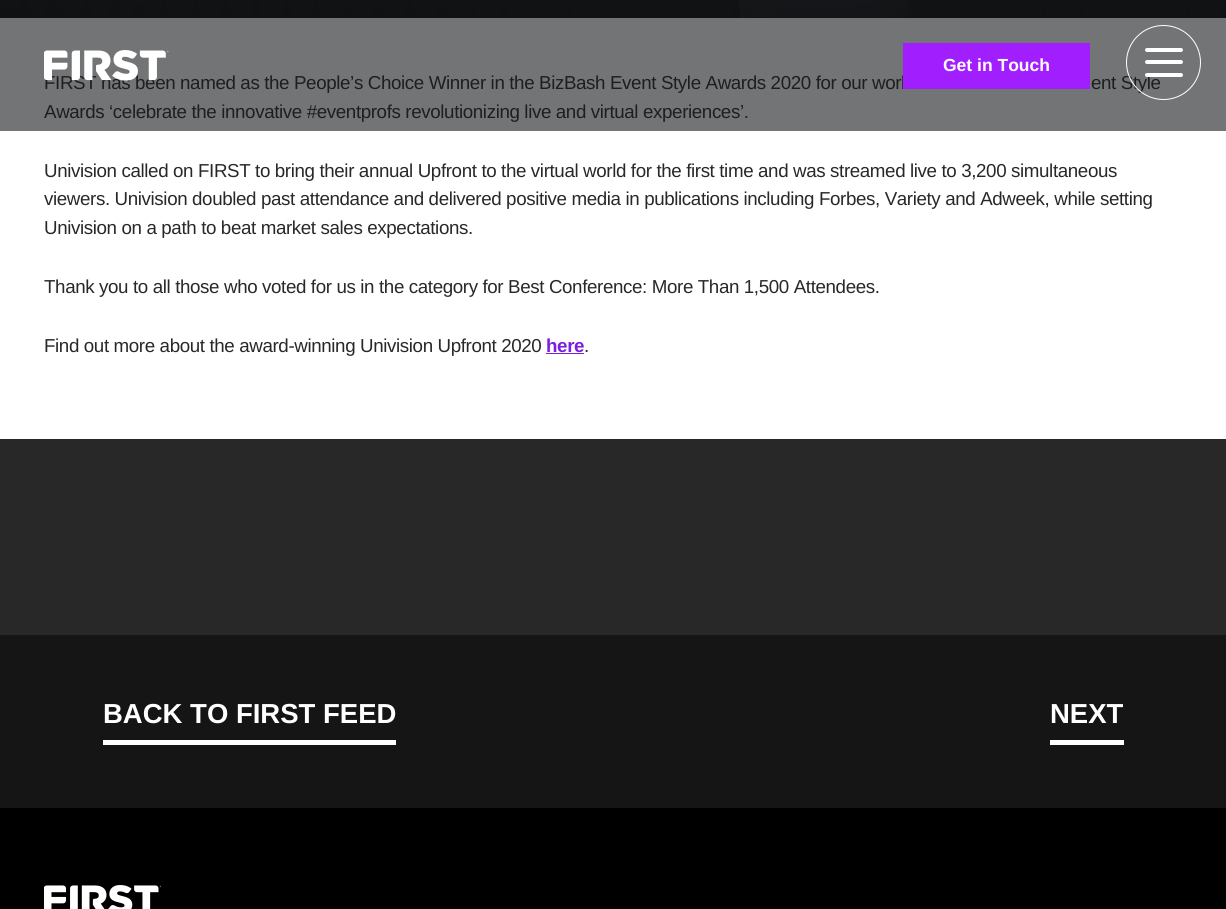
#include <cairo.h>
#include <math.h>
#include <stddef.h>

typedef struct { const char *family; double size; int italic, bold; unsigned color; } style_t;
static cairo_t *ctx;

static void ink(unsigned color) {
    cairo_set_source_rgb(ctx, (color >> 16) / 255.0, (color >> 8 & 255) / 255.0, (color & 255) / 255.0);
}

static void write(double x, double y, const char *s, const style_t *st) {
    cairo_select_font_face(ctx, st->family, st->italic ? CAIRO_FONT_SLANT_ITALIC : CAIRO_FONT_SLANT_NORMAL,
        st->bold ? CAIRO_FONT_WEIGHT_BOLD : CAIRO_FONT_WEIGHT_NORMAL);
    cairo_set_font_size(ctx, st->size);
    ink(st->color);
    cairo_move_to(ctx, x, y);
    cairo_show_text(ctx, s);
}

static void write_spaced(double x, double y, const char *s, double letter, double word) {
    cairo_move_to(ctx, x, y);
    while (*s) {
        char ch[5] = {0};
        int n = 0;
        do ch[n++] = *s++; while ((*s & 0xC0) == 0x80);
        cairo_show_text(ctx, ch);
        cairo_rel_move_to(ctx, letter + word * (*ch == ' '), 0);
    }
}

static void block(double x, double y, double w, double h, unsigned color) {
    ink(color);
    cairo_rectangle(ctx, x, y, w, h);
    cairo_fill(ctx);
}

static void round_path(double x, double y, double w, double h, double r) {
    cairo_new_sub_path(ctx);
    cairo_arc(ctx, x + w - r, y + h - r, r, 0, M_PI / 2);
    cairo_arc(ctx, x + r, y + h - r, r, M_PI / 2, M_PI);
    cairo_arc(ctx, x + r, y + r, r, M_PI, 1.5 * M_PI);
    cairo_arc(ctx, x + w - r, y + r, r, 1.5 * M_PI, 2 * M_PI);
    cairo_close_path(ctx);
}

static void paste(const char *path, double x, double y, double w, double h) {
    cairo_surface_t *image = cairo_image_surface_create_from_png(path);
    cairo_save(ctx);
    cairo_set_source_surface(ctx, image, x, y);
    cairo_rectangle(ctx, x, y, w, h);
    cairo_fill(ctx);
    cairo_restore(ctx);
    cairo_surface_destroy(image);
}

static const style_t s1 = {"Liberation Sans", 17.5, 0, 1, 0xffffff};
static const style_t s2 = {"Liberation Sans", 27.5, 0, 1, 0xffffff};

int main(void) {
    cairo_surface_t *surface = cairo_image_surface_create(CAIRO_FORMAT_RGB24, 1226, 909);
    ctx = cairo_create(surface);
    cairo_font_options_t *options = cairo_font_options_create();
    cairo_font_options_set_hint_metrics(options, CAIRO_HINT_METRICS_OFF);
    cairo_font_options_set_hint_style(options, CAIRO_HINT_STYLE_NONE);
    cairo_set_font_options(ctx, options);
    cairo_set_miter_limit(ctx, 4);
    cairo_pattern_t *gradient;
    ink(0xffffff);
    cairo_paint(ctx);
    block(0, 18, 1226, 113, 0x737476);
    block(0, 17, 1226, 1, 0x101113);
    paste("pic1.png", 0, 0, 1226, 18);
    gradient = cairo_pattern_create_linear(613, 18, 613, -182);
    cairo_pattern_add_color_stop_rgba(gradient, 0, 0.063, 0.067, 0.075, 0.94);
    cairo_pattern_add_color_stop_rgba(gradient, 0.26, 0.063, 0.067, 0.075, 0.91);
    cairo_pattern_add_color_stop_rgba(gradient, 1, 0.063, 0.067, 0.075, 0);
    cairo_set_source(ctx, gradient);
    cairo_pattern_destroy(gradient);
    cairo_rectangle(ctx, 0, 0, 1226, 18);
    cairo_fill(ctx);
    cairo_select_font_face(ctx, "Liberation Sans", CAIRO_FONT_SLANT_NORMAL, CAIRO_FONT_WEIGHT_NORMAL);
    cairo_set_font_size(ctx, 18.75);
    ink(0x1d1e20);
    write_spaced(44, 89, "FIRST has been named as the People’s Choice Winner in the BizBash Event Style Awards 2020 for our work", -0.38, 0);
    paste("pic2.png", 44, 50, 125, 31);
    block(903, 43, 187, 46, 0xa11fff);
    write(943, 71, "Get in Touch", &s1);
    cairo_select_font_face(ctx, "Liberation Sans", CAIRO_FONT_SLANT_NORMAL, CAIRO_FONT_WEIGHT_NORMAL);
    cairo_set_font_size(ctx, 18.75);
    ink(0x1d1e20);
    write_spaced(1091, 89, "ent Style", -0.38, 0);
    cairo_new_path(ctx);
    cairo_arc(ctx, 1163.5, 62.5, 37, 0, 2 * M_PI);
    ink(0xffffff);
    cairo_set_line_width(ctx, 1);
    cairo_stroke(ctx);
    round_path(1145, 48, 38, 4, 2);
    cairo_fill(ctx);
    round_path(1145, 60, 38, 4, 2);
    cairo_fill(ctx);
    round_path(1145, 73, 38, 4, 2);
    cairo_fill(ctx);
    ink(0x1d1e20);
    write_spaced(44, 118, "Awards ‘celebrate the innovative #eventprofs revolutionizing live and virtual experiences’.", -0.38, 0);
    ink(0x282828);
    write_spaced(44, 177, "Univision called on FIRST to bring their annual Upfront to the virtual world for the first time and was streamed live to 3,200 simultaneous", -0.38, 0);
    write_spaced(44, 205, "viewers. Univision doubled past attendance and delivered positive media in publications including Forbes, Variety and Adweek, while setting", -0.38, 0);
    write_spaced(44, 234, "Univision on a path to beat market sales expectations.", -0.38, 0);
    write_spaced(44, 293, "Thank you to all those who voted for us in the category for Best Conference: More Than 1,500 Attendees.", -0.38, 0);
    write_spaced(44, 352, "Find out more about the award-winning Univision Upfront 2020", -0.38, 0);
    cairo_select_font_face(ctx, "Liberation Sans", CAIRO_FONT_SLANT_NORMAL, CAIRO_FONT_WEIGHT_BOLD);
    ink(0x7a1ee0);
    write_spaced(546, 352, "here", -0.38, 0);
    block(546, 353, 38, 1, 0x7a1ee0);
    cairo_select_font_face(ctx, "Liberation Sans", CAIRO_FONT_SLANT_NORMAL, CAIRO_FONT_WEIGHT_NORMAL);
    ink(0x282828);
    write_spaced(584, 352, ".", -0.38, 0);
    block(0, 439, 1226, 196, 0x282828);
    block(0, 635, 1226, 173, 0x151515);
    block(103, 740, 293, 5, 0xffffff);
    write(103, 723, "BACK TO FIRST FEED", &s2);
    block(1050, 740, 74, 5, 0xffffff);
    write(1050, 723, "NEXT", &s2);
    block(0, 808, 1226, 101, 0x000000);
    paste("pic3.png", 44, 885, 117, 24);
    cairo_surface_write_to_png(surface, "screenshot.png");
    cairo_font_options_destroy(options);
    cairo_destroy(ctx);
    cairo_surface_destroy(surface);
    return 0;
}
